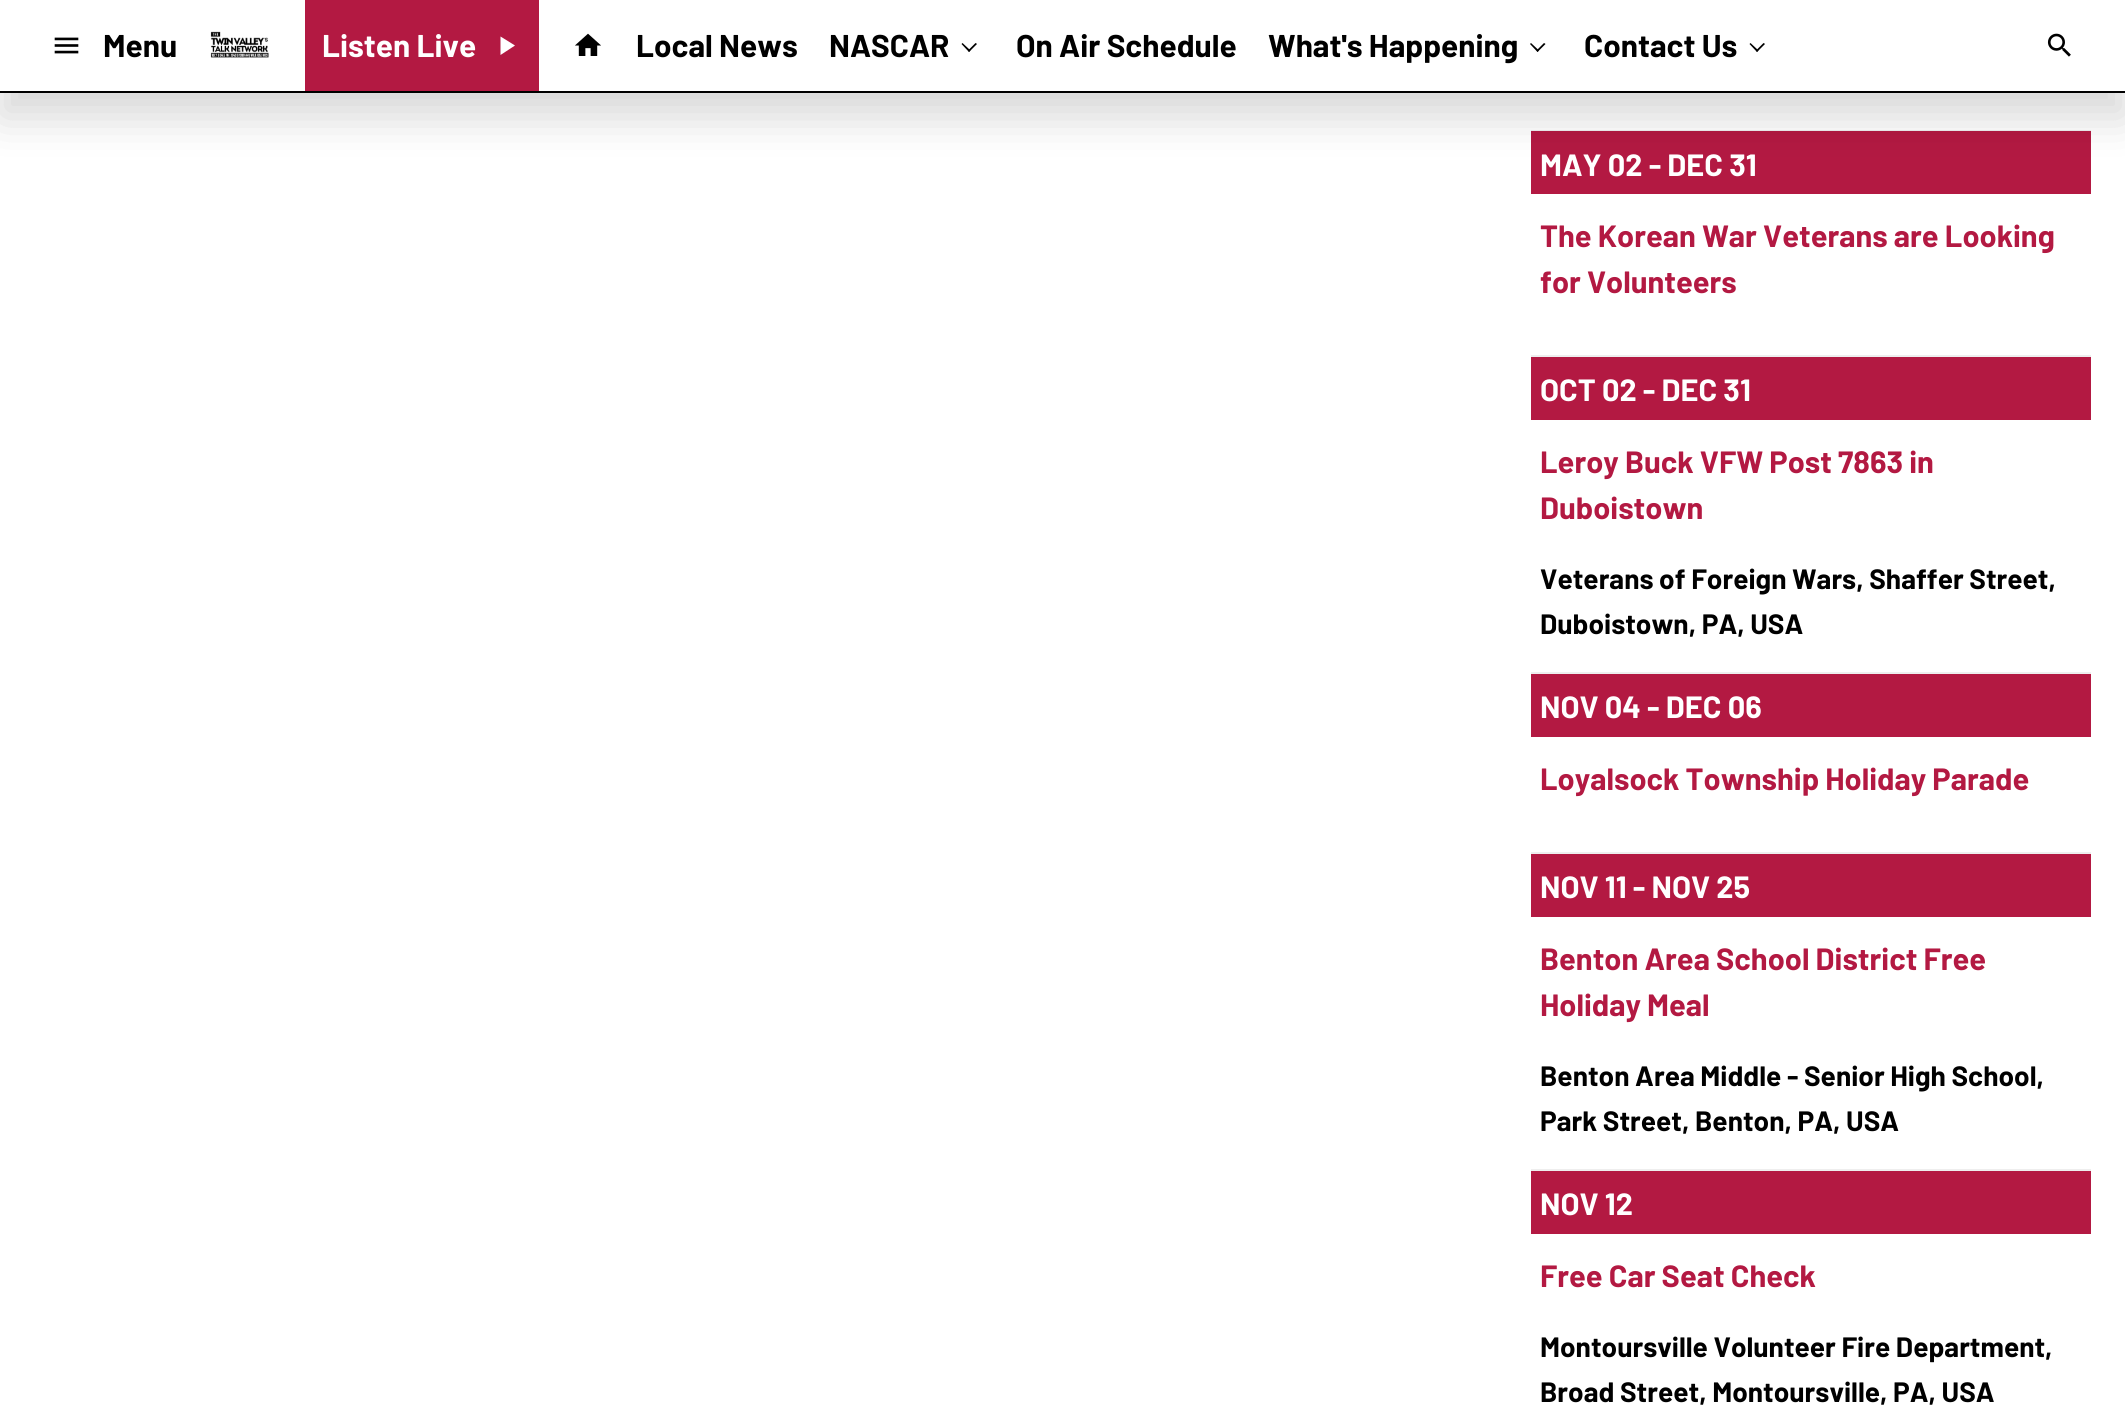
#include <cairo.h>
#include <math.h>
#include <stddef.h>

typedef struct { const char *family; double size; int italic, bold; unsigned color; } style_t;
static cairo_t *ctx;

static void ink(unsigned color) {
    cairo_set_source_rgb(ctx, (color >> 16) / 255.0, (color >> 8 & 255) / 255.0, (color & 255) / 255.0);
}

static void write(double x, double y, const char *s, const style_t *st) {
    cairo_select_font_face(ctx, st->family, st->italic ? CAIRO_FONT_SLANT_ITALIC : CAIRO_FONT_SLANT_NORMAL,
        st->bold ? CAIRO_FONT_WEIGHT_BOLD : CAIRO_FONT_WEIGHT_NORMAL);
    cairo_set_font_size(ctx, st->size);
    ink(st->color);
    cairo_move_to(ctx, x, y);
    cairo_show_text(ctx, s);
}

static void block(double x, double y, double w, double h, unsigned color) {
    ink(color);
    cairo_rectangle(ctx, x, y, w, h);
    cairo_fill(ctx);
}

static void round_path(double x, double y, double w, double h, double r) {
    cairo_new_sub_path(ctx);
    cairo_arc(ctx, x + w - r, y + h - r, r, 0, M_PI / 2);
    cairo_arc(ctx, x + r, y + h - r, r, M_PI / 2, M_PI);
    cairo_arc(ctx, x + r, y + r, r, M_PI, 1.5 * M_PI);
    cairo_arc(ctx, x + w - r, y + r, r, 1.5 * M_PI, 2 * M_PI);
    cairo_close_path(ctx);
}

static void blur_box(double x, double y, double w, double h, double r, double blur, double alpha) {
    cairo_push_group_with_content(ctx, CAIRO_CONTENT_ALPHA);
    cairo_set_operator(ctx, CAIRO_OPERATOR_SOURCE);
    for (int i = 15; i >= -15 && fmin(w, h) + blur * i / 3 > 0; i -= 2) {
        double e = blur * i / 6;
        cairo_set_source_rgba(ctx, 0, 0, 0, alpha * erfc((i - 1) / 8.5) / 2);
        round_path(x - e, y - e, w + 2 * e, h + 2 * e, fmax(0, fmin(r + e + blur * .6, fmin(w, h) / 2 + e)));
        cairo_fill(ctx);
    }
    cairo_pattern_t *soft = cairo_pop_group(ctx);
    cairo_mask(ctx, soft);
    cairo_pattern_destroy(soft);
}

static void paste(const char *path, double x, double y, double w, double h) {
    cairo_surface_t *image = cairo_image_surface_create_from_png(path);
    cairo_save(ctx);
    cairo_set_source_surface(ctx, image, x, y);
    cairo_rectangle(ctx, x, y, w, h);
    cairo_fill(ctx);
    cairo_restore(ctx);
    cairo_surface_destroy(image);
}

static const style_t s1 = {"Barlow", 31.5, 0, 1, 0x000000};
static const style_t s2 = {"Barlow", 31.5, 0, 1, 0xffffff};
static const style_t s3 = {"Barlow", 30.75, 0, 1, 0xffffff};
static const style_t s4 = {"Barlow", 30.75, 0, 1, 0xb31942};
static const style_t s5 = {"Barlow", 28, 0, 1, 0x000000};

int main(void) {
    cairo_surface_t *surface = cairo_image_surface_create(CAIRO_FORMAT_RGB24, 2125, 1428);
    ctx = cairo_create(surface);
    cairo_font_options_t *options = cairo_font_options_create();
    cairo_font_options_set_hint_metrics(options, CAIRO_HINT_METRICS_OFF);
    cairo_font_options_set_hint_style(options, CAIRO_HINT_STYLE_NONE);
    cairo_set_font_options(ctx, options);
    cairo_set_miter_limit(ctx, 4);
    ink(0xffffff);
    cairo_paint(ctx);
    block(1531, 130, 560, 1, 0xeeeeee);
    block(1531, 131, 560, 63, 0xb31942);
    ink(0x000000);
    blur_box(0, 23, 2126, 94, 0, 22, 0.16);
    block(0, 0, 2125, 91, 0xffffff);
    block(0, 91, 2125, 2, 0x000000);
    paste("pic1.png", 54, 37, 25, 17);
    write(103, 57, "Menu", &s1);
    paste("pic2.png", 210, 31, 59, 27);
    block(305, 0, 234, 91, 0xb31942);
    write(322, 57, "Listen Live", &s2);
    cairo_new_path(ctx);
    cairo_move_to(ctx, 500.5, 36.5);
    cairo_line_to(ctx, 500.5, 55);
    cairo_line_to(ctx, 515, 45.5);
    cairo_close_path(ctx);
    cairo_fill(ctx);
    paste("pic3.png", 575, 33, 26, 23);
    write(636, 57, "Local News", &s1);
    write(829, 57, "NASCAR", &s1);
    cairo_new_path(ctx);
    cairo_move_to(ctx, 977, 44);
    cairo_line_to(ctx, 969, 52);
    cairo_line_to(ctx, 968, 50.5);
    cairo_line_to(ctx, 975.5, 43);
    cairo_close_path(ctx);
    cairo_fill(ctx);
    cairo_new_path(ctx);
    cairo_move_to(ctx, 970.5, 50.5);
    cairo_line_to(ctx, 969, 52);
    cairo_line_to(ctx, 961.5, 44);
    cairo_line_to(ctx, 962.5, 43);
    cairo_close_path(ctx);
    cairo_fill(ctx);
    write(1016, 57, "On Air Schedule", &s1);
    write(1268, 57, "What's Happening", &s1);
    cairo_new_path(ctx);
    cairo_move_to(ctx, 1545.5, 44);
    cairo_line_to(ctx, 1537.5, 52);
    cairo_line_to(ctx, 1536.5, 50.5);
    cairo_line_to(ctx, 1544, 43);
    cairo_close_path(ctx);
    cairo_fill(ctx);
    cairo_new_path(ctx);
    cairo_move_to(ctx, 1539, 50.5);
    cairo_line_to(ctx, 1537.5, 52);
    cairo_line_to(ctx, 1530, 44);
    cairo_line_to(ctx, 1531, 43);
    cairo_close_path(ctx);
    cairo_fill(ctx);
    write(1584, 57, "Contact Us", &s1);
    cairo_new_path(ctx);
    cairo_move_to(ctx, 1765, 44);
    cairo_line_to(ctx, 1757, 52);
    cairo_line_to(ctx, 1756, 50.5);
    cairo_line_to(ctx, 1763.5, 43);
    cairo_close_path(ctx);
    cairo_fill(ctx);
    cairo_new_path(ctx);
    cairo_move_to(ctx, 1758.5, 50.5);
    cairo_line_to(ctx, 1757, 52);
    cairo_line_to(ctx, 1749.5, 44);
    cairo_line_to(ctx, 1750.5, 43);
    cairo_close_path(ctx);
    cairo_fill(ctx);
    paste("pic4.png", 2047, 33, 24, 24);
    write(1540, 176, "MAY 02 - DEC 31", &s3);
    write(1540, 247, "The Korean War Veterans are Looking", &s4);
    write(1540, 293, "for Volunteers", &s4);
    block(1531, 355, 560, 2, 0xeeeeee);
    block(1531, 357, 560, 63, 0xb31942);
    write(1540, 401, "OCT 02 - DEC 31", &s3);
    write(1540, 473, "Leroy Buck VFW Post 7863 in", &s4);
    write(1540, 519, "Duboistown", &s4);
    write(1540, 589, "Veterans of Foreign Wars, Shaffer Street,", &s5);
    write(1540, 634, "Duboistown, PA, USA", &s5);
    block(1531, 672, 560, 2, 0xeeeeee);
    block(1531, 674, 560, 63, 0xb31942);
    write(1540, 718, "NOV 04 - DEC 06", &s3);
    write(1540, 790, "Loyalsock Township Holiday Parade", &s4);
    block(1531, 852, 560, 2, 0xeeeeee);
    block(1531, 854, 560, 63, 0xb31942);
    write(1540, 898, "NOV 11 - NOV 25", &s3);
    write(1540, 970, "Benton Area School District Free", &s4);
    write(1540, 1016, "Holiday Meal", &s4);
    write(1540, 1086, "Benton Area Middle - Senior High School,", &s5);
    write(1540, 1131, "Park Street, Benton, PA, USA", &s5);
    block(1531, 1169, 560, 2, 0xeeeeee);
    block(1531, 1171, 560, 63, 0xb31942);
    write(1540, 1215, "NOV 12", &s3);
    write(1540, 1287, "Free Car Seat Check", &s4);
    write(1540, 1357, "Montoursville Volunteer Fire Department,", &s5);
    write(1540, 1402, "Broad Street, Montoursville, PA, USA", &s5);
    cairo_surface_write_to_png(surface, "screenshot.png");
    cairo_font_options_destroy(options);
    cairo_destroy(ctx);
    cairo_surface_destroy(surface);
    return 0;
}
